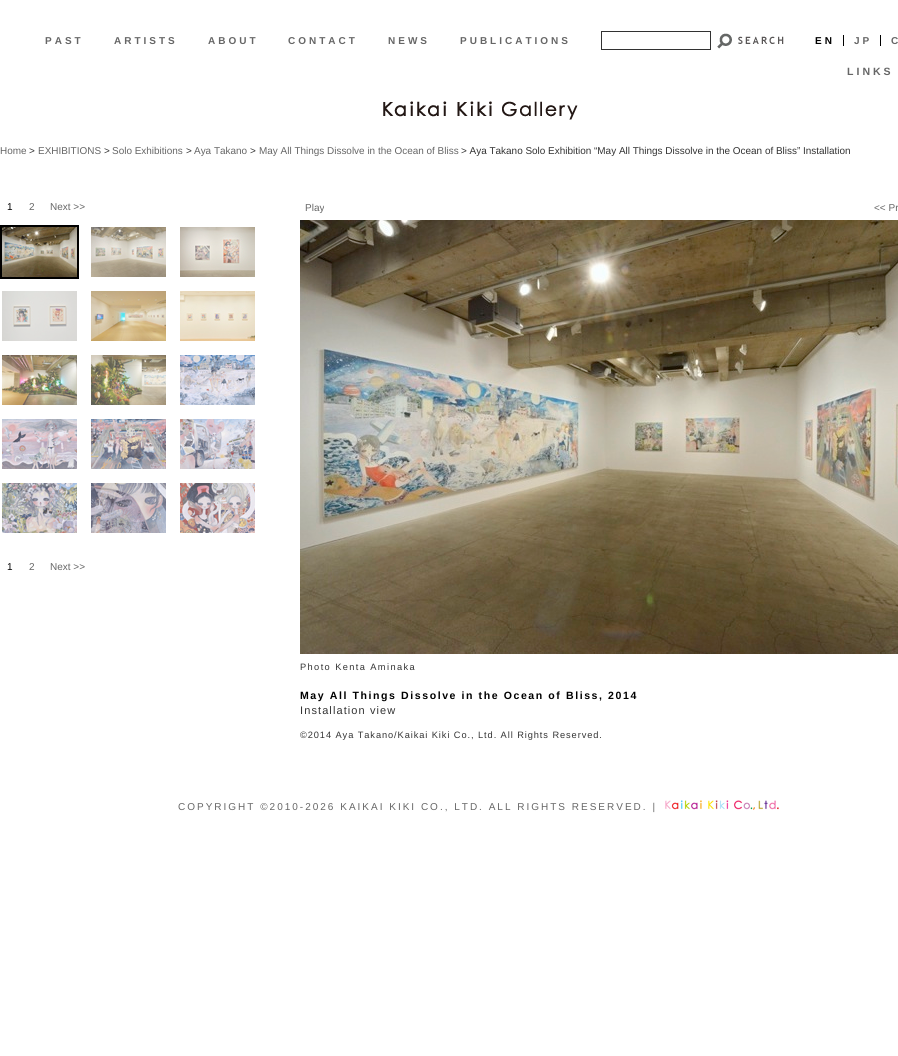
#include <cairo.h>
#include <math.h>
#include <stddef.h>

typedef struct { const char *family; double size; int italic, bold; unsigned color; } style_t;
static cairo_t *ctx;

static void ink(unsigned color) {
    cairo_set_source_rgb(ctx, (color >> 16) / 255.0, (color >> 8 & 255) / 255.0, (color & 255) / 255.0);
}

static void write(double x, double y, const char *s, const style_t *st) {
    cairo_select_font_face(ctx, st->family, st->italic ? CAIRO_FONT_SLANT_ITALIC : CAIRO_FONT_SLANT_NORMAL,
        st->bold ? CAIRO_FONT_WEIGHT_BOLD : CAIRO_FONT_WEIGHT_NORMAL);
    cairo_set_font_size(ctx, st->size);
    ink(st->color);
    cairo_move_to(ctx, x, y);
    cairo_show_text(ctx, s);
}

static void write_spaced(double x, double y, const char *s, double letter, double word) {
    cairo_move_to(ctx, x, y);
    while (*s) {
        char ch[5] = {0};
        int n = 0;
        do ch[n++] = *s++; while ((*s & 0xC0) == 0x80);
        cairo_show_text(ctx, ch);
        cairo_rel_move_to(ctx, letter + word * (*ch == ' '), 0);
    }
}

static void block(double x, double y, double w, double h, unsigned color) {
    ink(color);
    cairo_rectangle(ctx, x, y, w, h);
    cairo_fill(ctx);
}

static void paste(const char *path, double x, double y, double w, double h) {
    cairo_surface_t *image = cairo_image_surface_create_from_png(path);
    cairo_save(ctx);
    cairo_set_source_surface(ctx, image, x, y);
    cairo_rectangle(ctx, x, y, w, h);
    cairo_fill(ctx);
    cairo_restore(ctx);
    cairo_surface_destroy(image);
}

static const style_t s1 = {"Liberation Sans", 9.95, 0, 0, 0x666666};
static const style_t s2 = {"Liberation Sans", 9.95, 0, 0, 0x333333};
static const style_t s3 = {"Liberation Sans", 10, 0, 0, 0x000000};
static const style_t s4 = {"Liberation Sans", 10, 0, 0, 0x666666};

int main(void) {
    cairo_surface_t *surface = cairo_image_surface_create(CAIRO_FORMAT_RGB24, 898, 1056);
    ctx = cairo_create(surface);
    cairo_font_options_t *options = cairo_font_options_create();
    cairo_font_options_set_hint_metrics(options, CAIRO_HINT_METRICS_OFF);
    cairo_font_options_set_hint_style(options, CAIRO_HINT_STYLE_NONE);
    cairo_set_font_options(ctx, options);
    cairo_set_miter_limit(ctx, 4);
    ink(0xffffff);
    cairo_paint(ctx);
    cairo_select_font_face(ctx, "Liberation Sans", CAIRO_FONT_SLANT_NORMAL, CAIRO_FONT_WEIGHT_BOLD);
    cairo_set_font_size(ctx, 10);
    ink(0x666666);
    write_spaced(45, 44, "PAST", 3, 0);
    write_spaced(114, 44, "ARTISTS", 3, 0);
    write_spaced(208, 44, "ABOUT", 3, 0);
    write_spaced(288, 44, "CONTACT", 3, 0);
    write_spaced(388, 44, "NEWS", 3, 0);
    write_spaced(460, 44, "PUBLICATIONS", 3, 0);
    cairo_rectangle(ctx, 601.5, 31.5, 109, 18);
    ink(0x323232);
    cairo_set_line_width(ctx, 1);
    cairo_stroke(ctx);
    paste("pic1.png", 717, 33, 67, 16);
    ink(0x000000);
    write_spaced(815, 44, "EN", 3, 0);
    block(843, 35, 1, 11, 0x000000);
    ink(0x666666);
    write_spaced(854, 44, "JP", 3, 0);
    block(880, 35, 1, 11, 0x000000);
    ink(0x666666);
    write_spaced(891, 44, "C", 3, 0);
    cairo_set_font_size(ctx, 10.55);
    write_spaced(847, 75, "LINKS", 3, 0);
    paste("pic2.png", 383, 101, 195, 19);
    write(0, 154, "Home", &s1);
    write(29, 154, ">", &s2);
    write(38, 154, "EXHIBITIONS", &s1);
    write(104, 154, ">", &s2);
    write(112, 154, "Solo Exhibitions", &s1);
    write(186, 154, ">", &s2);
    write(194, 154, "Aya Takano", &s1);
    write(250, 154, ">", &s2);
    write(259, 154, "May All Things Dissolve in the Ocean of Bliss", &s1);
    write(461, 154, "> Aya Takano Solo Exhibition “May All Things Dissolve in the Ocean of Bliss” Installation", &s2);
    write(7, 210, "1", &s3);
    write(29, 210, "2", &s4);
    write(50, 210, "Next >>", &s4);
    block(0, 225, 79, 54, 0x000000);
    paste("pic3.png", 2, 227, 75, 50);
    paste("pic4.png", 91, 227, 75, 50);
    paste("pic5.png", 180, 227, 75, 50);
    paste("pic6.png", 2, 291, 75, 50);
    paste("pic7.png", 91, 291, 75, 50);
    paste("pic8.png", 180, 291, 75, 50);
    paste("pic9.png", 2, 355, 75, 50);
    paste("pic10.png", 91, 355, 75, 50);
    paste("pic11.png", 180, 355, 75, 50);
    paste("pic12.png", 2, 419, 75, 50);
    paste("pic13.png", 91, 419, 75, 50);
    paste("pic14.png", 180, 419, 75, 50);
    paste("pic15.png", 2, 483, 75, 50);
    paste("pic16.png", 91, 483, 75, 50);
    paste("pic17.png", 180, 483, 75, 50);
    write(7, 570, "1", &s3);
    write(29, 570, "2", &s4);
    write(50, 570, "Next >>", &s4);
    write(305, 211, "Play", &s4);
    write(874, 211, "<< Pr", &s4);
    paste("pic18.png", 300, 220, 598, 434);
    cairo_set_font_size(ctx, 9.25);
    ink(0x333333);
    write_spaced(300, 670, "Photo Kenta Aminaka", 1.4, 0);
    cairo_select_font_face(ctx, "Liberation Sans", CAIRO_FONT_SLANT_NORMAL, CAIRO_FONT_WEIGHT_BOLD);
    cairo_set_font_size(ctx, 10.55);
    ink(0x000000);
    write_spaced(300, 699, "May All Things Dissolve in the Ocean of Bliss, 2014", 1.58, 0);
    cairo_select_font_face(ctx, "Liberation Sans", CAIRO_FONT_SLANT_NORMAL, CAIRO_FONT_WEIGHT_NORMAL);
    cairo_set_font_size(ctx, 11);
    ink(0x333333);
    write_spaced(300, 714, "Installation view", 1.1, 0);
    cairo_set_font_size(ctx, 9.25);
    write_spaced(300, 738, "©2014 Aya Takano/Kaikai Kiki Co., Ltd. All Rights Reserved.", 0.92, 0);
    cairo_set_font_size(ctx, 10);
    ink(0x666666);
    write_spaced(178, 810, "COPYRIGHT ©2010-2026 KAIKAI KIKI CO., LTD. ALL RIGHTS RESERVED. |", 2, 0);
    paste("pic19.png", 665, 800, 114, 10);
    cairo_surface_write_to_png(surface, "screenshot.png");
    cairo_font_options_destroy(options);
    cairo_destroy(ctx);
    cairo_surface_destroy(surface);
    return 0;
}
